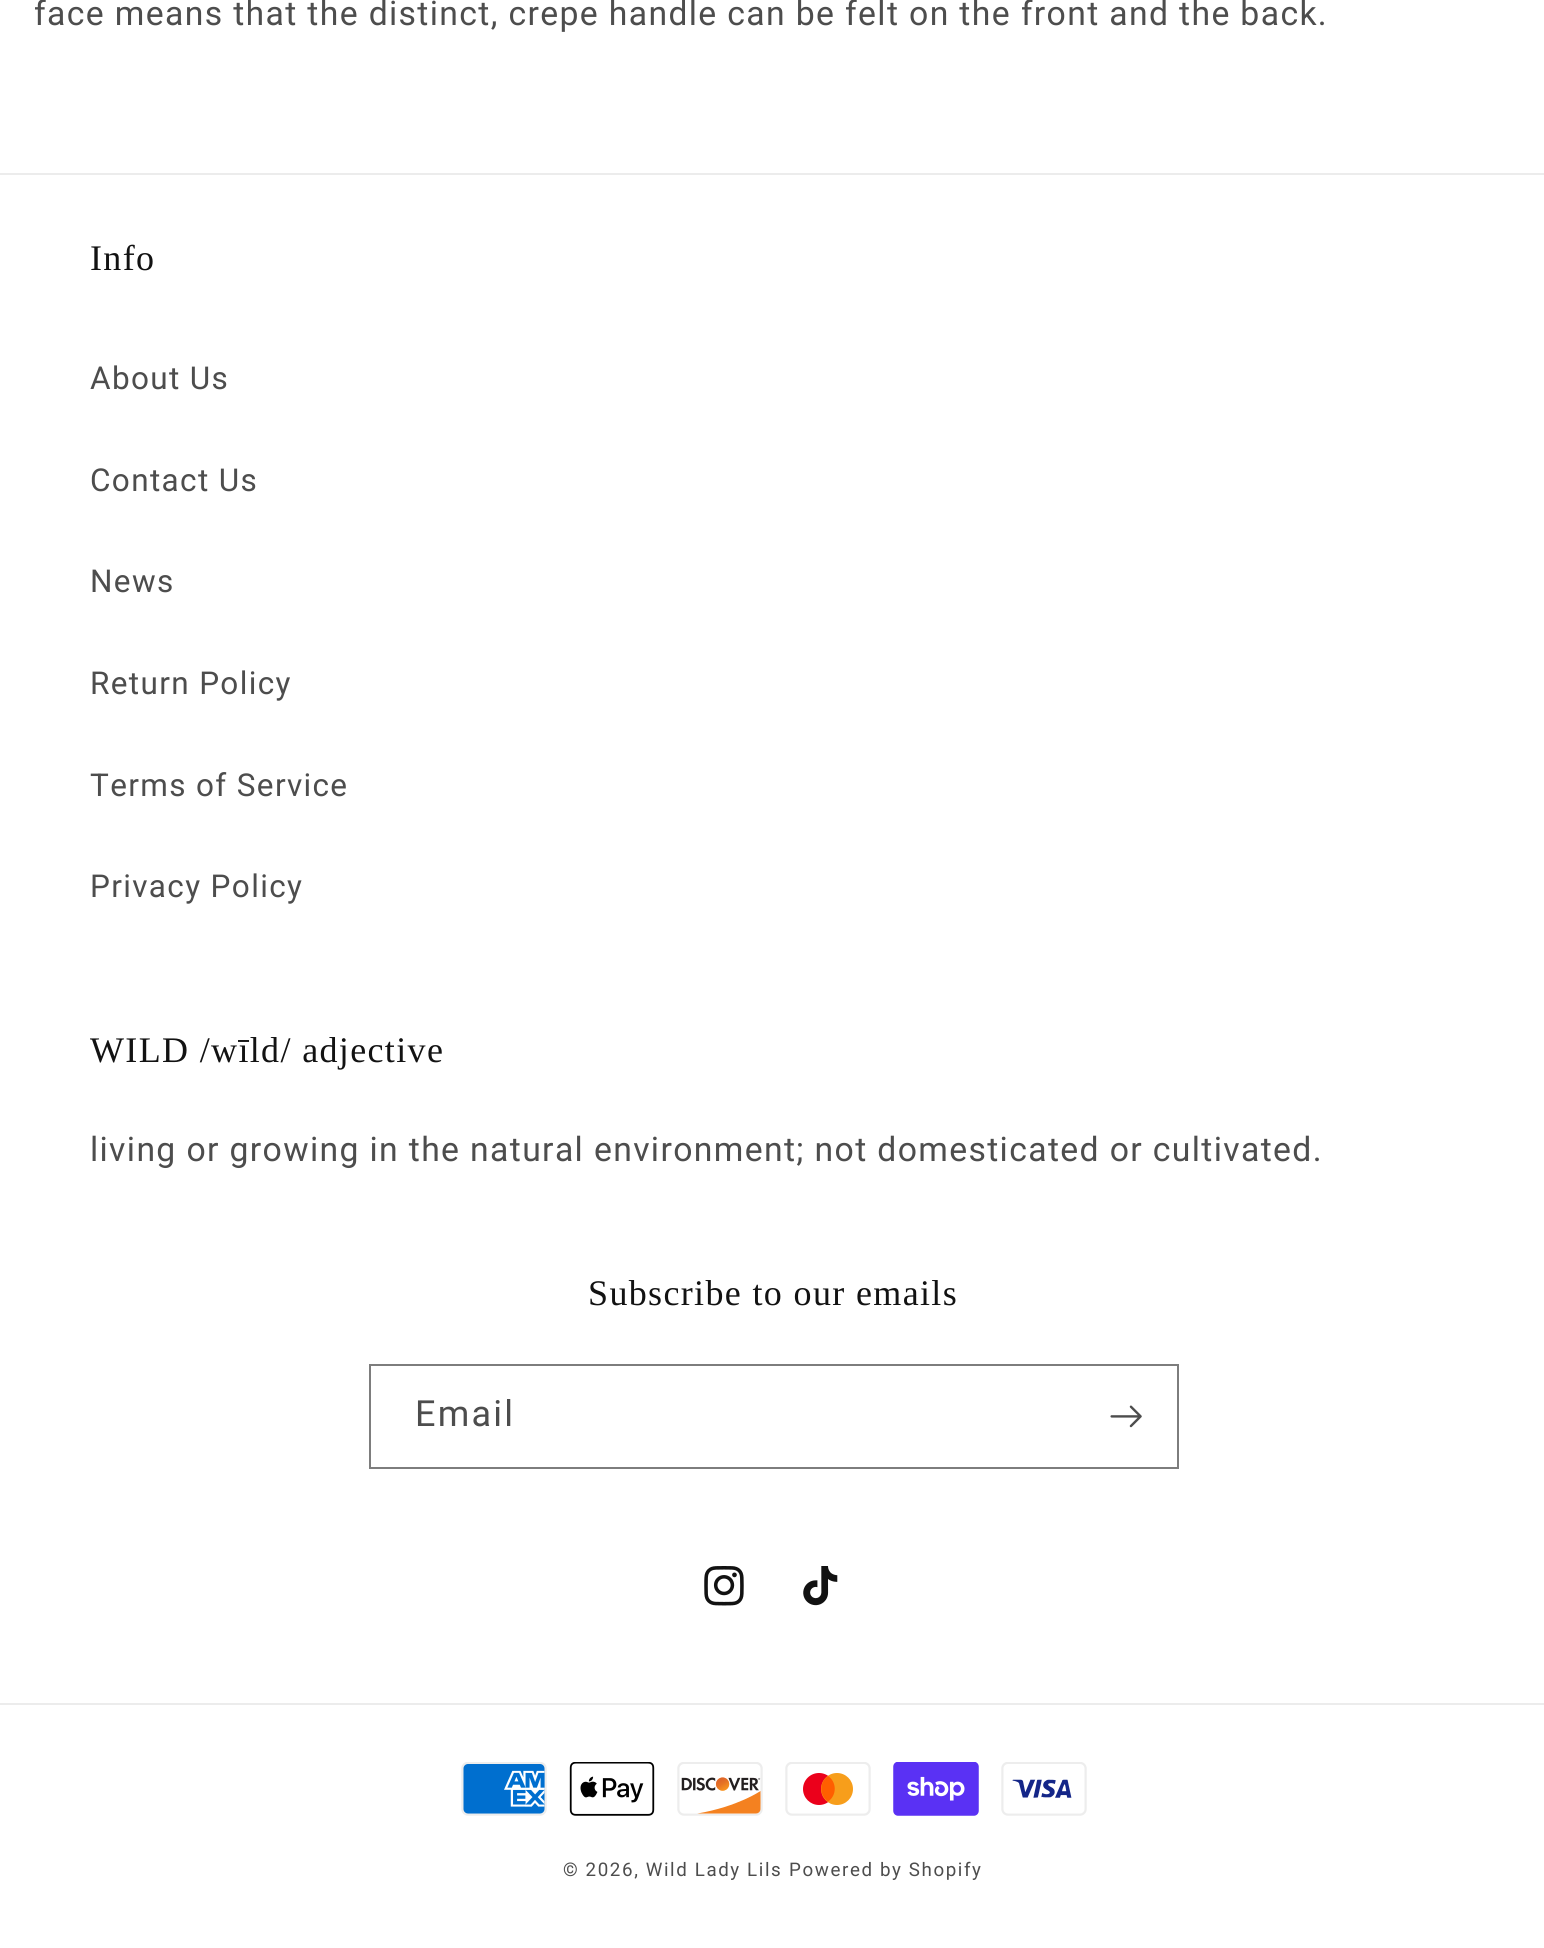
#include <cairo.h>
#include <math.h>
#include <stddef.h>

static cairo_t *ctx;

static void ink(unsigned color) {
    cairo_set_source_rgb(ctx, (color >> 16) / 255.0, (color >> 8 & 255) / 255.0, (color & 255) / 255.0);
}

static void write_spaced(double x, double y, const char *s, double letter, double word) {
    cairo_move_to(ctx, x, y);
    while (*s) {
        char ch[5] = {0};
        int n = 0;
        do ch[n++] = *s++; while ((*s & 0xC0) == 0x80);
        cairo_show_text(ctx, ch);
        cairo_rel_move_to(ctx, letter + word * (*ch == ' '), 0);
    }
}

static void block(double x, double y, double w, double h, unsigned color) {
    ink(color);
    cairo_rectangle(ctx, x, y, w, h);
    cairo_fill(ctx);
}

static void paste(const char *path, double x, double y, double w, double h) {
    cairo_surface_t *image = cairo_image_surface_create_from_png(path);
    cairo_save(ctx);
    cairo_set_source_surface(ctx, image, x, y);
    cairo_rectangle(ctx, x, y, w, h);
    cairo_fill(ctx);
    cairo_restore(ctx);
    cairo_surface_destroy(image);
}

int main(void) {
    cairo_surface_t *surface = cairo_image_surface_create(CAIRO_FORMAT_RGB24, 1544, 1948);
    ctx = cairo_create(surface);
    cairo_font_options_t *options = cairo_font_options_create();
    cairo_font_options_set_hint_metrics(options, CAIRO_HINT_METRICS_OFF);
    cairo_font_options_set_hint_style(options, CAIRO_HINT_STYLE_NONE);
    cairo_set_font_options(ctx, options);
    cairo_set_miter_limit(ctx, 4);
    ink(0xffffff);
    cairo_paint(ctx);
    cairo_select_font_face(ctx, "Roboto", CAIRO_FONT_SLANT_NORMAL, CAIRO_FONT_WEIGHT_NORMAL);
    cairo_set_font_size(ctx, 33.75);
    ink(0x4d4d4d);
    write_spaced(34, 25, "face means that the distinct, crepe handle can be felt on the front and the back.", 1.35, 0);
    block(0, 173, 1544, 2, 0xececec);
    cairo_select_font_face(ctx, "Liberation Serif", CAIRO_FONT_SLANT_NORMAL, CAIRO_FONT_WEIGHT_NORMAL);
    cairo_set_font_size(ctx, 36);
    ink(0x121212);
    write_spaced(90, 270, "Info", 1.35, 0);
    cairo_select_font_face(ctx, "Roboto", CAIRO_FONT_SLANT_NORMAL, CAIRO_FONT_WEIGHT_NORMAL);
    cairo_set_font_size(ctx, 31.5);
    ink(0x4d4d4d);
    write_spaced(90, 389, "About Us", 1.35, 0);
    write_spaced(90, 491, "Contact Us", 1.35, 0);
    write_spaced(90, 592, "News", 1.35, 0);
    write_spaced(90, 694, "Return Policy", 1.35, 0);
    write_spaced(90, 796, "Terms of Service", 1.35, 0);
    write_spaced(90, 897, "Privacy Policy", 1.35, 0);
    cairo_select_font_face(ctx, "Liberation Serif", CAIRO_FONT_SLANT_NORMAL, CAIRO_FONT_WEIGHT_NORMAL);
    cairo_set_font_size(ctx, 36);
    ink(0x121212);
    write_spaced(90, 1062, "WILD /wīld/ adjective", 1.35, 0);
    cairo_select_font_face(ctx, "Roboto", CAIRO_FONT_SLANT_NORMAL, CAIRO_FONT_WEIGHT_NORMAL);
    cairo_set_font_size(ctx, 33.75);
    ink(0x4d4d4d);
    write_spaced(90, 1161, "living or growing in the natural environment; not domesticated or cultivated.", 1.35, 0);
    cairo_select_font_face(ctx, "Liberation Serif", CAIRO_FONT_SLANT_NORMAL, CAIRO_FONT_WEIGHT_NORMAL);
    cairo_set_font_size(ctx, 36);
    ink(0x121212);
    write_spaced(588, 1305, "Subscribe to our emails", 1.35, 0);
    cairo_rectangle(ctx, 370, 1365, 808, 103);
    ink(0x7d7d7d);
    cairo_stroke(ctx);
    cairo_select_font_face(ctx, "Roboto", CAIRO_FONT_SLANT_NORMAL, CAIRO_FONT_WEIGHT_NORMAL);
    ink(0x4d4d4d);
    write_spaced(415, 1426, "Email", 2.25, 0);
    paste("pic1.png", 1110, 1405, 32, 23);
    paste("pic2.png", 704, 1566, 40, 40);
    paste("pic3.png", 803, 1566, 35, 40);
    block(0, 1703, 1544, 2, 0xececec);
    paste("pic4.png", 461, 1762, 86, 54);
    paste("pic5.png", 569, 1762, 86, 54);
    paste("pic6.png", 677, 1762, 86, 54);
    paste("pic7.png", 785, 1762, 86, 54);
    paste("pic8.png", 893, 1762, 86, 54);
    paste("pic9.png", 1001, 1762, 86, 54);
    cairo_set_font_size(ctx, 18.75);
    ink(0x4d4d4d);
    write_spaced(563, 1876, "© 2026, Wild Lady Lils", 1.6, 0);
    write_spaced(789, 1876, "Powered by Shopify", 1.6, 0);
    cairo_surface_write_to_png(surface, "screenshot.png");
    cairo_font_options_destroy(options);
    cairo_destroy(ctx);
    cairo_surface_destroy(surface);
    return 0;
}
